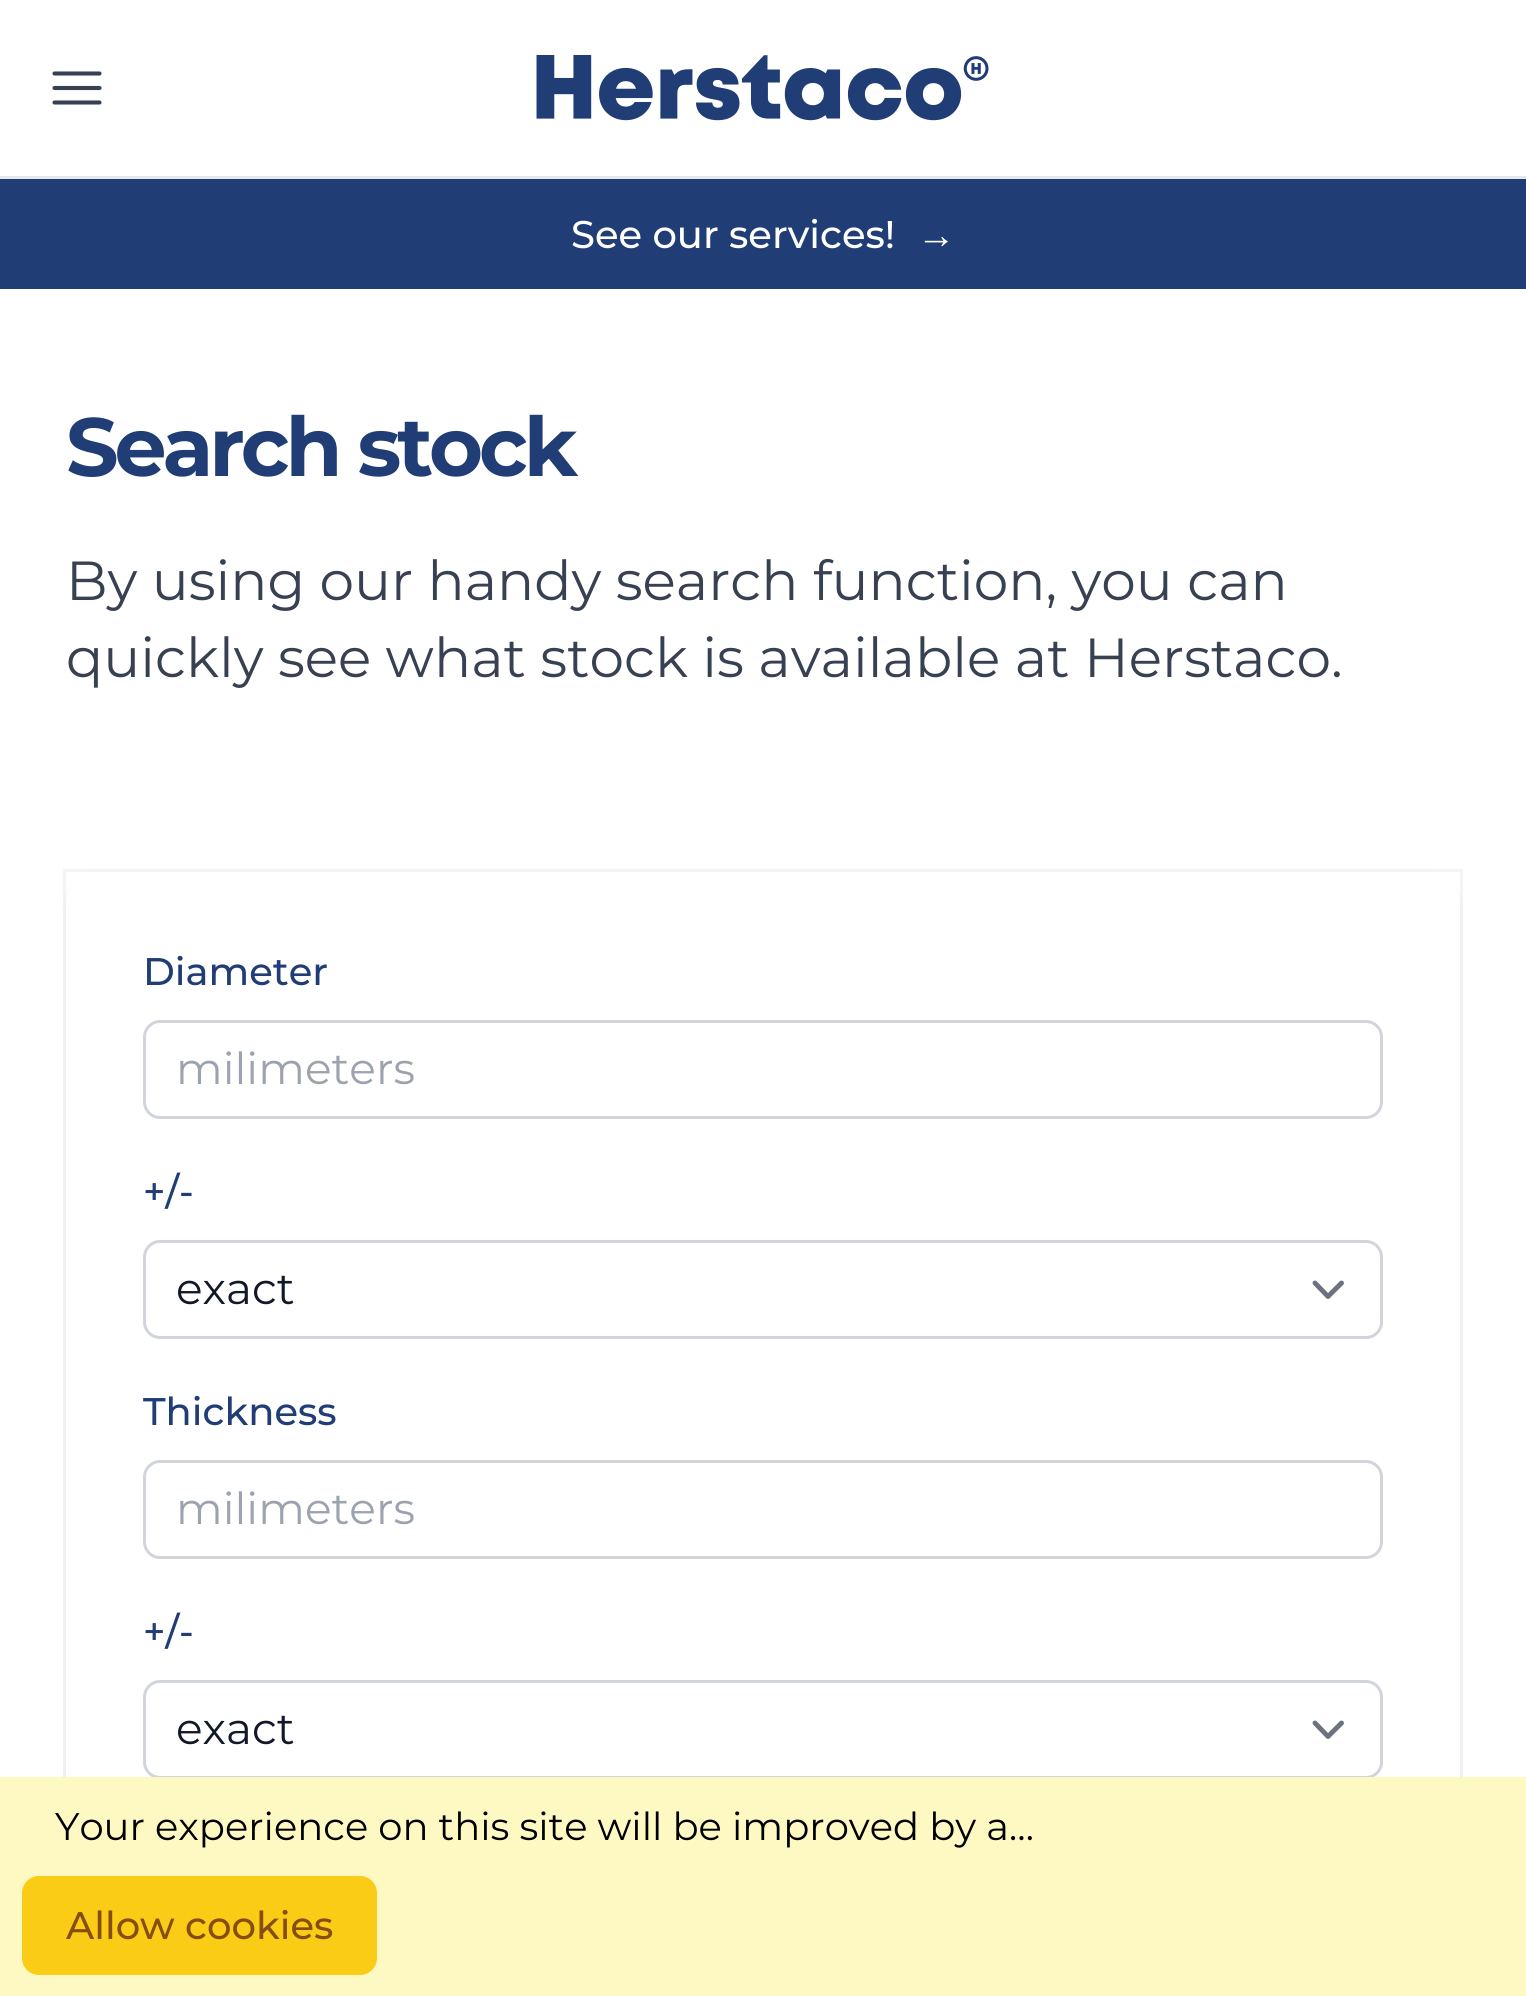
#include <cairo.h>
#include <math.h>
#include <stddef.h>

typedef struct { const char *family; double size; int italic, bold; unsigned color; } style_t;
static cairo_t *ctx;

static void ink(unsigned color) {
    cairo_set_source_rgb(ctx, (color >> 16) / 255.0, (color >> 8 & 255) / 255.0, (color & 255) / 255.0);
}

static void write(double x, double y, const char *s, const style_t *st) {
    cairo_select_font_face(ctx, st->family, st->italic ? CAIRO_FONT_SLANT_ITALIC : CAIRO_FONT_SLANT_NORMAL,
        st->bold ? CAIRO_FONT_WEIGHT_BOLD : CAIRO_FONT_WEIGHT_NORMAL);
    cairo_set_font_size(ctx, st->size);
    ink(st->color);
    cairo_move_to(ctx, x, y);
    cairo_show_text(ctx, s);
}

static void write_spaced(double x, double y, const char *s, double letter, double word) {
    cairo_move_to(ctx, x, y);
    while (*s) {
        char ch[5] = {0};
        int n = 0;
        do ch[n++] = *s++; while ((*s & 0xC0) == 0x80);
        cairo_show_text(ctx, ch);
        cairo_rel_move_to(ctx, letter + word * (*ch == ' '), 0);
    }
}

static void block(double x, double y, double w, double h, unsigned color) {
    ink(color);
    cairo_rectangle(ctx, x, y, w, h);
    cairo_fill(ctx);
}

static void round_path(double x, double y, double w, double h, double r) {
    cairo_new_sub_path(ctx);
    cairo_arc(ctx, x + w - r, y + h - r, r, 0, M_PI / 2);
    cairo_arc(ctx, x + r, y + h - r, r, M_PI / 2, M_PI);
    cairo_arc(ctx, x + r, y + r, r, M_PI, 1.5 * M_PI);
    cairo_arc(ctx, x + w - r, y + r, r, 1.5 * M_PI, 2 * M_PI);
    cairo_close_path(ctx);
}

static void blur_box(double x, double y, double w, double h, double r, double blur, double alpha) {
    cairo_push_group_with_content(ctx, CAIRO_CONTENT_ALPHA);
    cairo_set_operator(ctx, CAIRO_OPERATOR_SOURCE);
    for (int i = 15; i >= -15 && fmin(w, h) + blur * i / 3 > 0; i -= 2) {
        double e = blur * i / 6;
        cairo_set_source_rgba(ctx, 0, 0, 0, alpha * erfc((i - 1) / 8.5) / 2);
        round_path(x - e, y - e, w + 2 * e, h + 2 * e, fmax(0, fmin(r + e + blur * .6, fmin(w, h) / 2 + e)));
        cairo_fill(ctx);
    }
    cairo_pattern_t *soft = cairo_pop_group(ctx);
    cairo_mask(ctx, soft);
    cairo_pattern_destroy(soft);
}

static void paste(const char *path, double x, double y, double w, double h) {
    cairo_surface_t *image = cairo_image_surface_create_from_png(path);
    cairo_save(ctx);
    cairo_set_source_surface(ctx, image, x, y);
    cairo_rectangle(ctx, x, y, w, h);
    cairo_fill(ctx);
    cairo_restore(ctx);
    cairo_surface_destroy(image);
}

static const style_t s1 = {"Montserrat Medium", 38.5, 0, 0, 0xffffff};
static const style_t s2 = {"Liberation Sans", 38.5, 0, 0, 0xffffff};
static const style_t s3 = {"Montserrat", 55, 0, 0, 0x374151};
static const style_t s4 = {"Montserrat Medium", 38.5, 0, 0, 0x203d76};
static const style_t s5 = {"Montserrat", 44, 0, 0, 0x9ca3af};
static const style_t s6 = {"Montserrat", 44, 0, 0, 0x111827};
static const style_t s7 = {"Montserrat", 38.5, 0, 0, 0x000000};
static const style_t s8 = {"Montserrat Medium", 38.5, 0, 0, 0x854d0e};

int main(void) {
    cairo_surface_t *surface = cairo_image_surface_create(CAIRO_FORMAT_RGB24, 1526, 1996);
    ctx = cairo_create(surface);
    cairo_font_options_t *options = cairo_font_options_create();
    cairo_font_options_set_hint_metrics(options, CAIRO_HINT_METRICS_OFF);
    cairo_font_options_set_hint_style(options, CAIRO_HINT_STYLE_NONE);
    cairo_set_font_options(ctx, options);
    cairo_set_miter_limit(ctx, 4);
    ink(0xffffff);
    cairo_paint(ctx);
    block(0, 176, 1526, 3, 0xe5e7eb);
    cairo_new_path(ctx);
    cairo_move_to(ctx, 54.5, 73.5);
    cairo_line_to(ctx, 99.5, 73.5);
    cairo_move_to(ctx, 54.5, 88);
    cairo_line_to(ctx, 99.5, 88);
    cairo_move_to(ctx, 54.5, 102.5);
    cairo_line_to(ctx, 99.5, 102.5);
    ink(0x374151);
    cairo_set_line_width(ctx, 4.1);
    cairo_set_line_cap(ctx, CAIRO_LINE_CAP_ROUND);
    cairo_set_line_join(ctx, CAIRO_LINE_JOIN_ROUND);
    cairo_stroke(ctx);
    paste("pic1.png", 536, 55, 453, 66);
    block(0, 179, 1526, 110, 0x203d76);
    write(571, 248, "See our services!", &s1);
    write(917, 248, "→", &s2);
    cairo_select_font_face(ctx, "Montserrat", CAIRO_FONT_SLANT_NORMAL, CAIRO_FONT_WEIGHT_BOLD);
    cairo_set_font_size(ctx, 82.5);
    ink(0x203d76);
    write_spaced(66, 476, "Search stock", -4.1, 0);
    write(66, 600, "By using our handy search function, you can", &s3);
    write(66, 677, "quickly see what stock is available at Herstaco.", &s3);
    ink(0x000000);
    blur_box(66, 875, 1394, 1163, 33, 3, 0.05);
    cairo_rectangle(ctx, 64.5, 870.5, 1397, 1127);
    cairo_set_source_rgba(ctx, 0.067, 0.094, 0.153, 0.05);
    cairo_set_line_width(ctx, 3);
    cairo_set_line_cap(ctx, CAIRO_LINE_CAP_BUTT);
    cairo_set_line_join(ctx, CAIRO_LINE_JOIN_MITER);
    cairo_stroke(ctx);
    ink(0xffffff);
    round_path(66, 872, 1394, 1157, 33);
    cairo_fill(ctx);
    write(143, 985, "Diameter", &s4);
    round_path(144.5, 1021.5, 1237, 96, 15.5);
    ink(0xd1d5db);
    cairo_stroke(ctx);
    write(176, 1084, "milimeters", &s5);
    write(143, 1205, "+/-", &s4);
    cairo_new_path(ctx);
    cairo_move_to(ctx, 1315, 1283);
    cairo_line_to(ctx, 1328, 1296.5);
    cairo_line_to(ctx, 1341.5, 1283);
    ink(0x6b7280);
    cairo_set_line_width(ctx, 4.9);
    cairo_set_line_cap(ctx, CAIRO_LINE_CAP_ROUND);
    cairo_set_line_join(ctx, CAIRO_LINE_JOIN_ROUND);
    cairo_stroke(ctx);
    round_path(144.5, 1241.5, 1237, 96, 15.5);
    ink(0xd1d5db);
    cairo_set_line_width(ctx, 3);
    cairo_set_line_cap(ctx, CAIRO_LINE_CAP_BUTT);
    cairo_set_line_join(ctx, CAIRO_LINE_JOIN_MITER);
    cairo_stroke(ctx);
    write(176, 1304, "exact", &s6);
    write(143, 1425, "Thickness", &s4);
    round_path(144.5, 1461.5, 1237, 96, 15.5);
    ink(0xd1d5db);
    cairo_stroke(ctx);
    write(176, 1524, "milimeters", &s5);
    write(143, 1645, "+/-", &s4);
    cairo_new_path(ctx);
    cairo_move_to(ctx, 1315, 1723);
    cairo_line_to(ctx, 1328, 1736.5);
    cairo_line_to(ctx, 1341.5, 1723);
    ink(0x6b7280);
    cairo_set_line_width(ctx, 4.9);
    cairo_set_line_cap(ctx, CAIRO_LINE_CAP_ROUND);
    cairo_set_line_join(ctx, CAIRO_LINE_JOIN_ROUND);
    cairo_stroke(ctx);
    round_path(144.5, 1681.5, 1237, 96, 15.5);
    ink(0xd1d5db);
    cairo_set_line_width(ctx, 3);
    cairo_set_line_cap(ctx, CAIRO_LINE_CAP_BUTT);
    cairo_set_line_join(ctx, CAIRO_LINE_JOIN_MITER);
    cairo_stroke(ctx);
    write(176, 1744, "exact", &s6);
    block(0, 1777, 1526, 219, 0xfef9c3);
    write(55, 1840, "Your experience on this site will be improved by a…", &s7);
    ink(0xfacc15);
    round_path(22, 1876, 355, 99, 17);
    cairo_fill(ctx);
    write(66, 1939, "Allow cookies", &s8);
    cairo_surface_write_to_png(surface, "screenshot.png");
    cairo_font_options_destroy(options);
    cairo_destroy(ctx);
    cairo_surface_destroy(surface);
    return 0;
}
